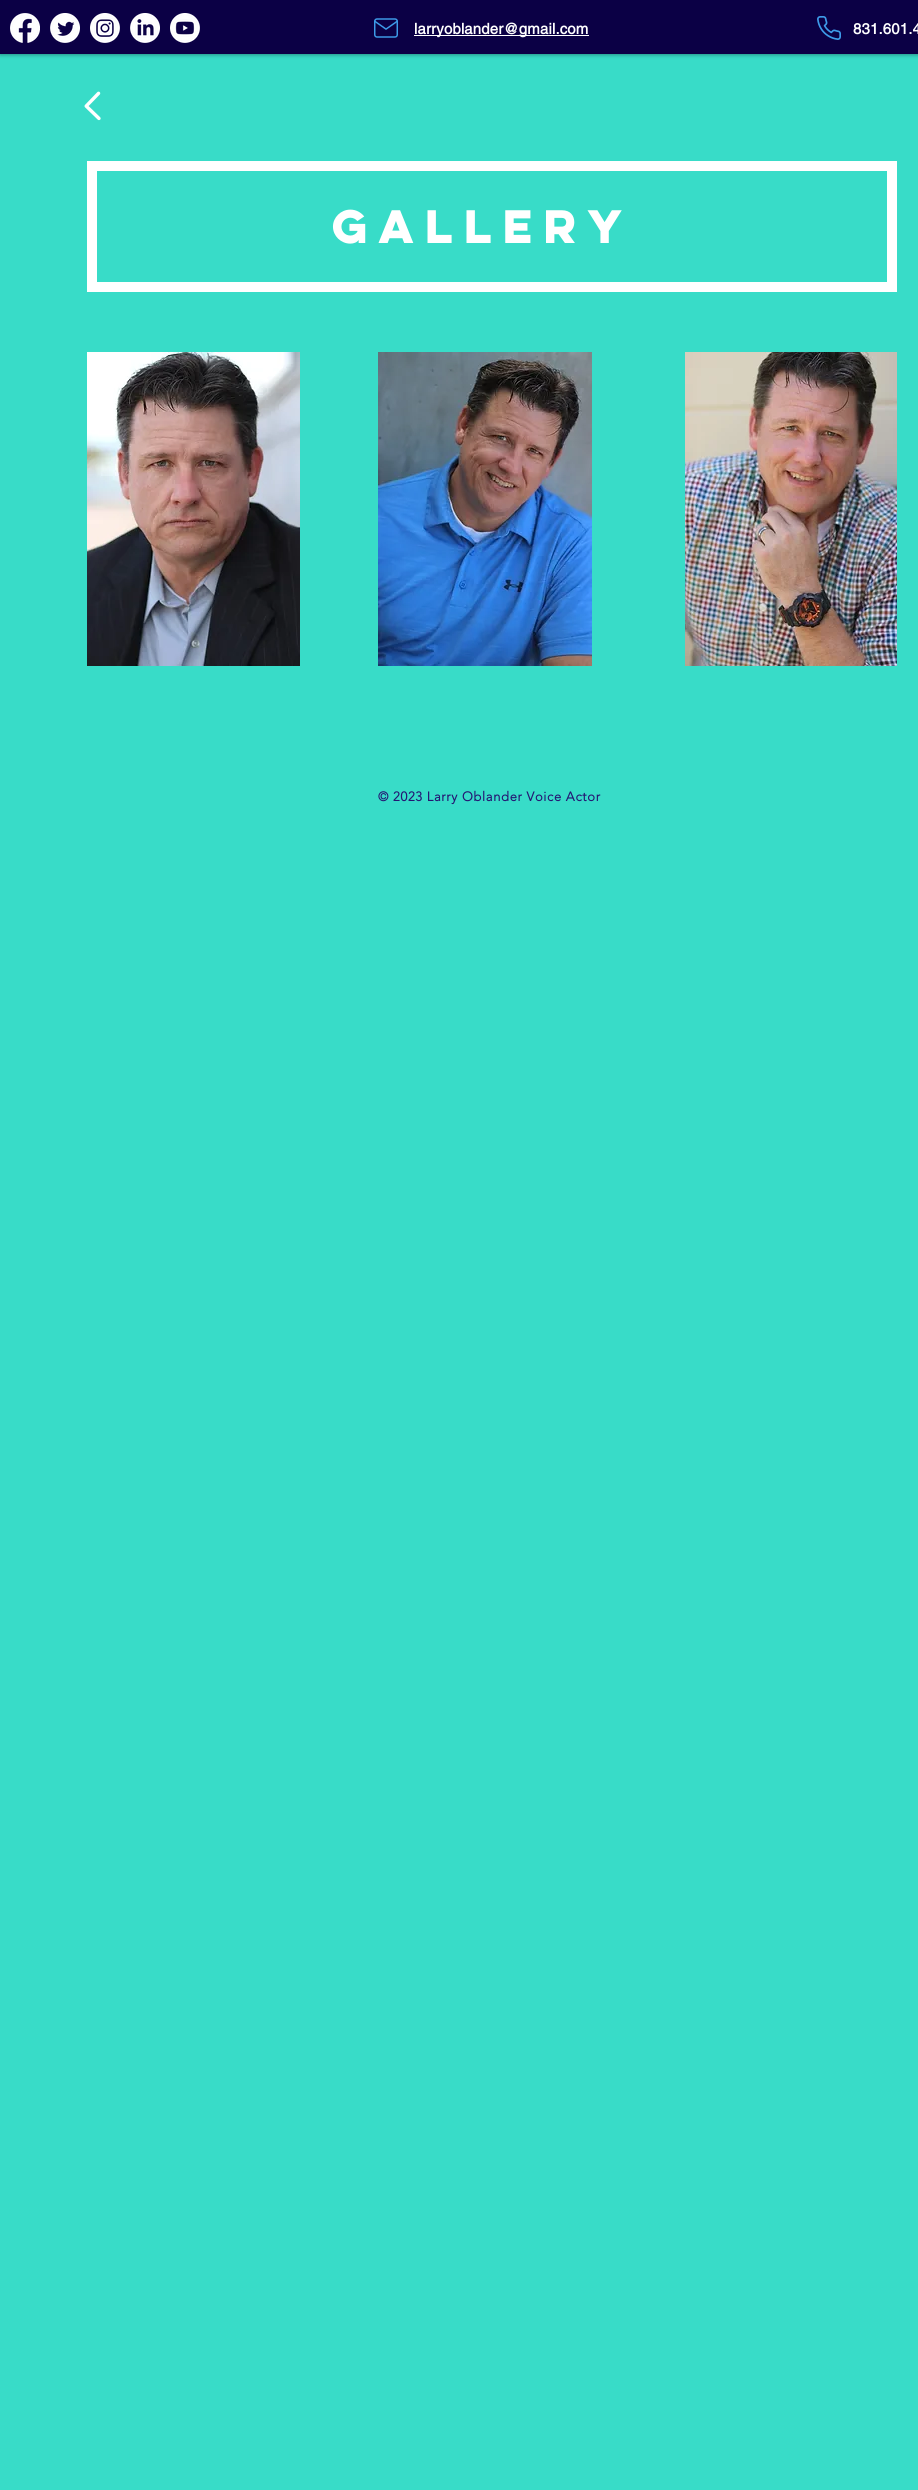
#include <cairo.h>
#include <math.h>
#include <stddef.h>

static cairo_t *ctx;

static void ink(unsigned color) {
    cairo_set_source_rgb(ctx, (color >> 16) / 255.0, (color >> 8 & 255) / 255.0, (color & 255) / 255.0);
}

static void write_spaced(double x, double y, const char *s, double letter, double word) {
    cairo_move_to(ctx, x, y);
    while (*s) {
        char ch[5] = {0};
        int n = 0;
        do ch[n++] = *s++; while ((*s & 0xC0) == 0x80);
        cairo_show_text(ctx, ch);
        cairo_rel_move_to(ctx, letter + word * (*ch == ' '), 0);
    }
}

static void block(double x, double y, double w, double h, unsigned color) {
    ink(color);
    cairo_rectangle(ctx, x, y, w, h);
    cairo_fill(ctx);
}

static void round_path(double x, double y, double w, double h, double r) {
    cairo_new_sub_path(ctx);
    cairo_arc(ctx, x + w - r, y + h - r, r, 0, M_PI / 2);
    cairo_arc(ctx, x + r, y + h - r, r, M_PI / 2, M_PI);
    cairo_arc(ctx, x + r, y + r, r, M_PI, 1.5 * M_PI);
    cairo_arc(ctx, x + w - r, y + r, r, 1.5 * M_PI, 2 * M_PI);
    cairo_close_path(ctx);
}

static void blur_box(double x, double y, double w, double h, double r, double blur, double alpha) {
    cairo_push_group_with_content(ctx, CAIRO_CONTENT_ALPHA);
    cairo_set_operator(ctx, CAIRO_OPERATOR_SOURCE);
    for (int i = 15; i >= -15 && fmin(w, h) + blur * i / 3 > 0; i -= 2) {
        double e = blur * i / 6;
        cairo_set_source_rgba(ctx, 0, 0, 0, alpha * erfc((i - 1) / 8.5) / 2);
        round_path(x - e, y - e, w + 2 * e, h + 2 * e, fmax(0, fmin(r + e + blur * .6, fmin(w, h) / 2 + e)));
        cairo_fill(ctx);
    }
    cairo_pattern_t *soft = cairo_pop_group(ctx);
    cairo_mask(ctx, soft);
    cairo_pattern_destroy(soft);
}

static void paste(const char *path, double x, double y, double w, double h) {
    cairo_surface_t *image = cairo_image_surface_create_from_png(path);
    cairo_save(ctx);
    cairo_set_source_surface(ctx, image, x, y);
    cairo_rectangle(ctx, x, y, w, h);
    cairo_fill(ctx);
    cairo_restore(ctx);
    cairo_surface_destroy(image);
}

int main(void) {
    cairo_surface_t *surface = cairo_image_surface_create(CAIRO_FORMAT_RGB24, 918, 2490);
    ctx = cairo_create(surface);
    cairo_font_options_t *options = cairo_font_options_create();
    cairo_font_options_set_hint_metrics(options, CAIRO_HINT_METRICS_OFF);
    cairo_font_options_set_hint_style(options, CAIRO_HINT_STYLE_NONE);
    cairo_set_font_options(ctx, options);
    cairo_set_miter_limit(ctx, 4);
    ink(0x38dcc8);
    cairo_paint(ctx);
    ink(0x000000);
    blur_box(0, 0, 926, 54, 0, 2.5, 0.5);
    block(0, 0, 918, 54, 0x0b0045);
    paste("pic1.png", 10, 13, 30, 30);
    paste("pic2.png", 50, 13, 30, 30);
    paste("pic3.png", 90, 13, 30, 30);
    paste("pic4.png", 130, 13, 30, 30);
    paste("pic5.png", 170, 13, 30, 30);
    paste("pic6.png", 374, 18, 24, 20);
    block(414, 35, 175, 1, 0xffffff);
    cairo_select_font_face(ctx, "helvetica", CAIRO_FONT_SLANT_NORMAL, CAIRO_FONT_WEIGHT_BOLD);
    cairo_set_font_size(ctx, 15);
    write_spaced(414, 34, "larryoblander@gmail.com", 0.15, 0);
    paste("pic7.png", 817, 16, 24, 24);
    write_spaced(853, 34, "831.601.4", 0.15, 0);
    paste("pic8.png", 84, 91, 17, 30);
    cairo_rectangle(ctx, 92, 166, 800, 121);
    cairo_set_line_width(ctx, 10);
    cairo_stroke(ctx);
    cairo_select_font_face(ctx, "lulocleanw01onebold", CAIRO_FONT_SLANT_NORMAL, CAIRO_FONT_WEIGHT_BOLD);
    cairo_set_font_size(ctx, 42);
    write_spaced(332, 243, "Gallery", 2, 0);
    paste("pic9.png", 87, 352, 213, 314);
    paste("pic10.png", 378, 352, 214, 314);
    paste("pic11.png", 685, 352, 212, 314);
    cairo_select_font_face(ctx, "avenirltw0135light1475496", CAIRO_FONT_SLANT_NORMAL, CAIRO_FONT_WEIGHT_BOLD);
    cairo_set_font_size(ctx, 13);
    ink(0x241773);
    write_spaced(378, 801, "© 2023 Larry Oblander Voice Actor", 0.65, 0);
    cairo_surface_write_to_png(surface, "screenshot.png");
    cairo_font_options_destroy(options);
    cairo_destroy(ctx);
    cairo_surface_destroy(surface);
    return 0;
}
